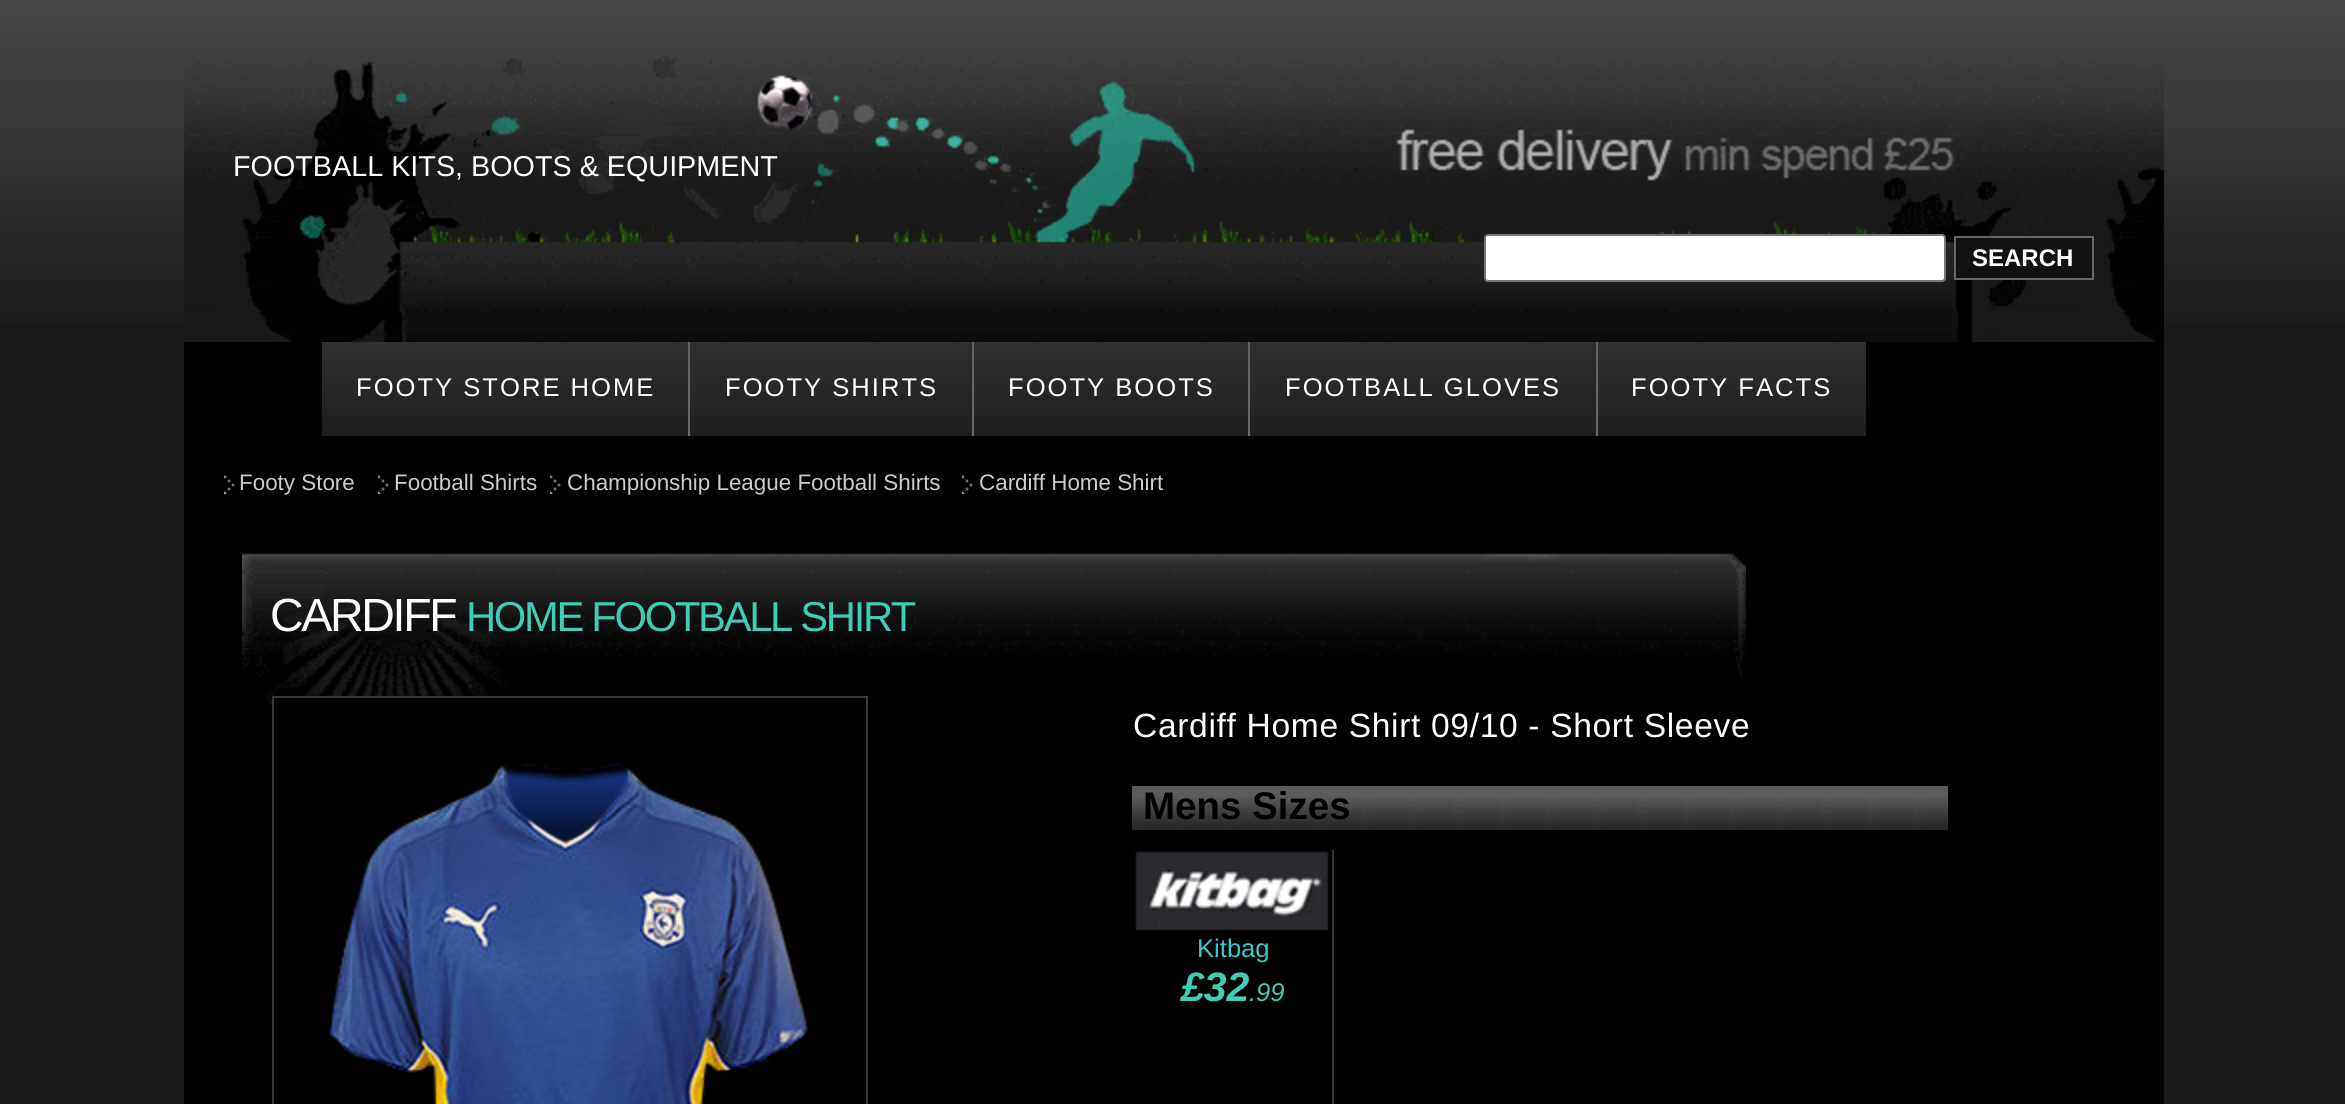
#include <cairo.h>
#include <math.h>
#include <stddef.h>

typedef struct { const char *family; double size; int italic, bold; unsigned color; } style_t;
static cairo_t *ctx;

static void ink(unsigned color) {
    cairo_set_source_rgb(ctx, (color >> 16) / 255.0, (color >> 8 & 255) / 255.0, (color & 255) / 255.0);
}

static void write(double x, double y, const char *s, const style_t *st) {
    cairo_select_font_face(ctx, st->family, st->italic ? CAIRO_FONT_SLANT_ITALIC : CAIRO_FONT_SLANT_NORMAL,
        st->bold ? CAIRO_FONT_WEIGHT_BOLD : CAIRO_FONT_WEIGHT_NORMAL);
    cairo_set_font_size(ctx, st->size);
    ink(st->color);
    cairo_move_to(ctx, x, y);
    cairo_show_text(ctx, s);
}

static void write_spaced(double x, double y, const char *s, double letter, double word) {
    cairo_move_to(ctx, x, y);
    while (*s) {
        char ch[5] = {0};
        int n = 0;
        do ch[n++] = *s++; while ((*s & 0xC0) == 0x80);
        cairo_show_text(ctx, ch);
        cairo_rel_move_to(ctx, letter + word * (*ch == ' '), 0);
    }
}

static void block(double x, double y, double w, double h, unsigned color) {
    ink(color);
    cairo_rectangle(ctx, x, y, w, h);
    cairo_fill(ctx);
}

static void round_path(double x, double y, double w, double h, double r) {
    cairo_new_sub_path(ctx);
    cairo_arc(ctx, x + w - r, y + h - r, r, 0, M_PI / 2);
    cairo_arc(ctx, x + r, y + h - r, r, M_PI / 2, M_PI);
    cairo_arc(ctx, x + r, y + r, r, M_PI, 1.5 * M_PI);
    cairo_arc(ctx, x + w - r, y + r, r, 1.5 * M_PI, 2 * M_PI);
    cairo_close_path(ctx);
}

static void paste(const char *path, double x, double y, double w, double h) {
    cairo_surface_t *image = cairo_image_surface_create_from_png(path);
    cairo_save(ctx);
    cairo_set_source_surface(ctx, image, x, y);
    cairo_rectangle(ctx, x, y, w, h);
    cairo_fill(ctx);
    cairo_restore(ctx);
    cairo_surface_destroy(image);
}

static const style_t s1 = {"Liberation Sans", 28.75, 0, 0, 0xffffff};
static const style_t s2 = {"Liberation Sans", 24, 0, 1, 0xffffff};
static const style_t s3 = {"Liberation Sans", 22.4, 0, 0, 0xcccccc};
static const style_t s4 = {"Liberation Sans", 38.5, 0, 1, 0x000000};
static const style_t s5 = {"Liberation Sans", 25.6, 0, 0, 0x33cccc};
static const style_t s6 = {"Liberation Sans", 41, 1, 1, 0x3fceb5};
static const style_t s7 = {"Liberation Sans", 25.6, 1, 0, 0x3fceb5};

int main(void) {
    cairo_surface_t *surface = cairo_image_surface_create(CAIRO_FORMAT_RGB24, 2345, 1104);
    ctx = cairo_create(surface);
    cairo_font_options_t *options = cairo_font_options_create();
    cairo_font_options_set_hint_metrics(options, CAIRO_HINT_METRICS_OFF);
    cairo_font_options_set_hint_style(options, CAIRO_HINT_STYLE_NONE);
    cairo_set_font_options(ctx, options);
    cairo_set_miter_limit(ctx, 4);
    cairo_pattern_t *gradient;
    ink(0x191919);
    cairo_paint(ctx);
    gradient = cairo_pattern_create_linear(1173, 0, 1173, 342);
    cairo_pattern_add_color_stop_rgba(gradient, 0, 0.286, 0.282, 0.282, 1);
    cairo_pattern_add_color_stop_rgba(gradient, 1, 0.098, 0.098, 0.098, 1);
    cairo_set_source(ctx, gradient);
    cairo_pattern_destroy(gradient);
    cairo_rectangle(ctx, 0, 0, 2345, 324);
    cairo_fill(ctx);
    paste("pic1.png", 184, 56, 1980, 286);
    write(233, 176, "FOOTBALL KITS, BOOTS & EQUIPMENT", &s1);
    round_path(1485, 235, 460, 46, 3);
    cairo_fill_preserve(ctx);
    ink(0x767676);
    cairo_stroke(ctx);
    ink(0x111111);
    cairo_rectangle(ctx, 1955, 237, 138, 42);
    cairo_fill_preserve(ctx);
    ink(0x666666);
    cairo_stroke(ctx);
    write(1972, 266, "SEARCH", &s2);
    block(184, 342, 1980, 762, 0x000000);
    gradient = cairo_pattern_create_linear(1094, 342, 1094, 436);
    cairo_pattern_add_color_stop_rgba(gradient, 0, 0.188, 0.188, 0.188, 1);
    cairo_pattern_add_color_stop_rgba(gradient, 1, 0.118, 0.118, 0.118, 1);
    cairo_set_source(ctx, gradient);
    cairo_pattern_destroy(gradient);
    cairo_rectangle(ctx, 322, 342, 1544, 94);
    cairo_fill(ctx);
    cairo_select_font_face(ctx, "Liberation Sans", CAIRO_FONT_SLANT_NORMAL, CAIRO_FONT_WEIGHT_NORMAL);
    cairo_set_font_size(ctx, 25.6);
    ink(0xffffff);
    write_spaced(356, 396, "FOOTY STORE HOME", 2, 0);
    block(688, 342, 2, 94, 0x666666);
    ink(0xffffff);
    write_spaced(725, 396, "FOOTY SHIRTS", 2, 0);
    block(972, 342, 2, 94, 0x666666);
    ink(0xffffff);
    write_spaced(1008, 396, "FOOTY BOOTS", 2, 0);
    block(1248, 342, 2, 94, 0x666666);
    ink(0xffffff);
    write_spaced(1285, 396, "FOOTBALL GLOVES", 2, 0);
    block(1596, 342, 2, 94, 0x666666);
    ink(0xffffff);
    write_spaced(1631, 396, "FOOTY FACTS", 2, 0);
    paste("pic2.png", 224, 475, 11, 19);
    write(239, 490, "Footy Store", &s3);
    paste("pic2.png", 378, 475, 11, 19);
    write(394, 490, "Football Shirts", &s3);
    paste("pic2.png", 550, 475, 11, 19);
    write(567, 490, "Championship League Football Shirts", &s3);
    paste("pic2.png", 962, 475, 11, 19);
    write(979, 490, "Cardiff Home Shirt", &s3);
    paste("pic3.png", 242, 553, 1504, 174);
    cairo_set_font_size(ctx, 46.5);
    ink(0xffffff);
    write_spaced(270, 631, "CARDIFF", -2.3, 0);
    cairo_set_font_size(ctx, 41.75);
    ink(0x3fceb5);
    write_spaced(466, 631, "HOME FOOTBALL SHIRT", -2.3, 0);
    cairo_rectangle(ctx, 273, 697, 594, 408);
    ink(0x383838);
    cairo_stroke(ctx);
    paste("pic4.png", 285, 698, 531, 406);
    cairo_set_font_size(ctx, 33.6);
    ink(0xffffff);
    write_spaced(1133, 737, "Cardiff Home Shirt 09/10 - Short Sleeve", 0.65, 0);
    block(1132, 786, 816, 11, 0x5c5c5c);
    paste("pic5.png", 1132, 797, 816, 33);
    write(1143, 819, "Mens Sizes", &s4);
    paste("pic6.png", 1135, 851, 194, 80);
    block(1332, 850, 2, 254, 0x333333);
    write(1197, 957, "Kitbag", &s5);
    write(1181, 1001, "£32", &s6);
    write(1249, 1001, ".99", &s7);
    cairo_surface_write_to_png(surface, "screenshot.png");
    cairo_font_options_destroy(options);
    cairo_destroy(ctx);
    cairo_surface_destroy(surface);
    return 0;
}
